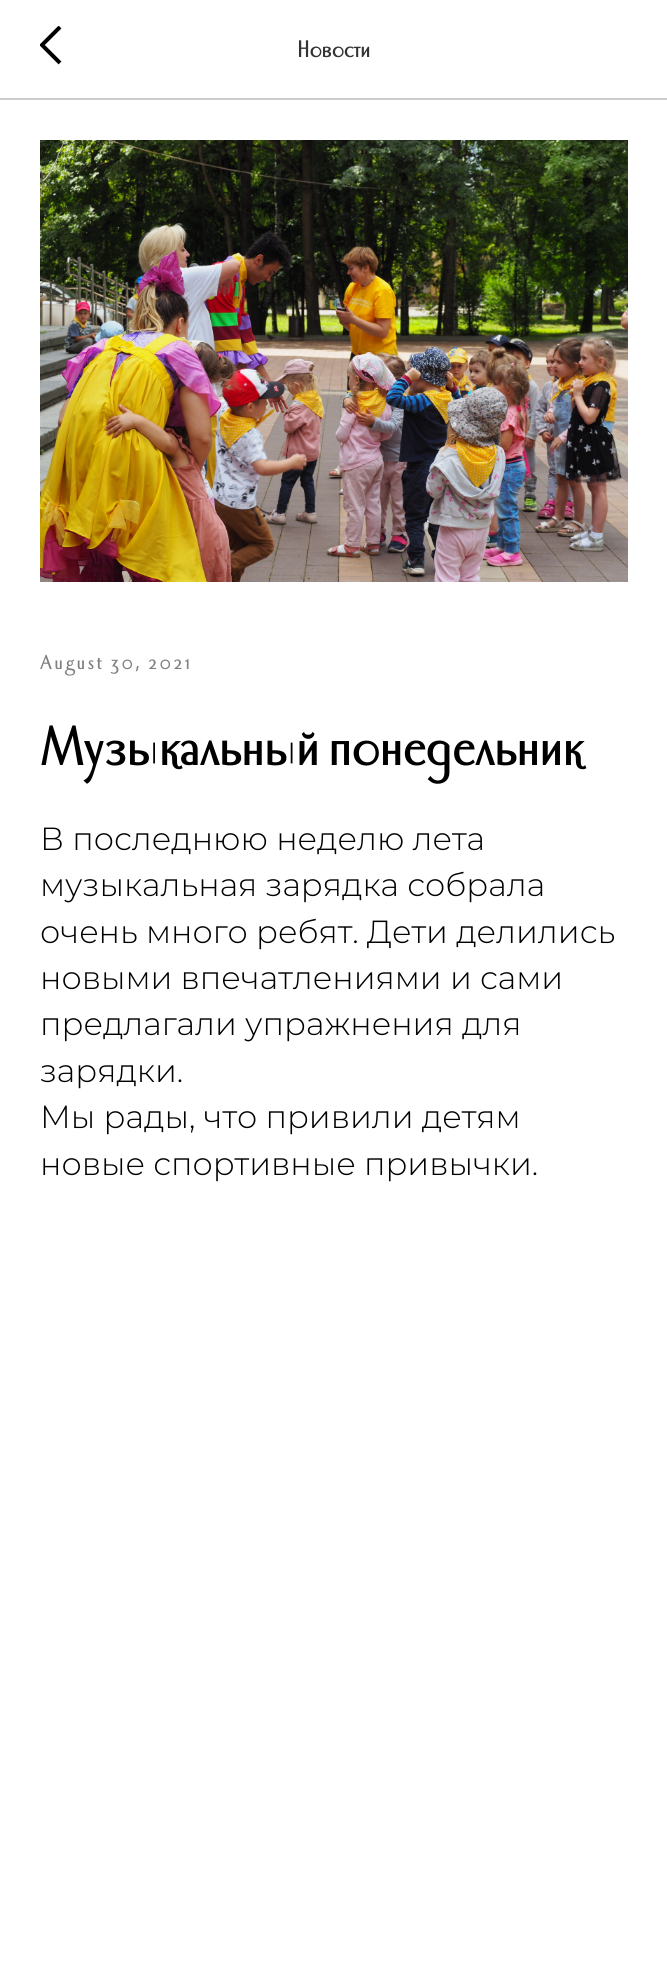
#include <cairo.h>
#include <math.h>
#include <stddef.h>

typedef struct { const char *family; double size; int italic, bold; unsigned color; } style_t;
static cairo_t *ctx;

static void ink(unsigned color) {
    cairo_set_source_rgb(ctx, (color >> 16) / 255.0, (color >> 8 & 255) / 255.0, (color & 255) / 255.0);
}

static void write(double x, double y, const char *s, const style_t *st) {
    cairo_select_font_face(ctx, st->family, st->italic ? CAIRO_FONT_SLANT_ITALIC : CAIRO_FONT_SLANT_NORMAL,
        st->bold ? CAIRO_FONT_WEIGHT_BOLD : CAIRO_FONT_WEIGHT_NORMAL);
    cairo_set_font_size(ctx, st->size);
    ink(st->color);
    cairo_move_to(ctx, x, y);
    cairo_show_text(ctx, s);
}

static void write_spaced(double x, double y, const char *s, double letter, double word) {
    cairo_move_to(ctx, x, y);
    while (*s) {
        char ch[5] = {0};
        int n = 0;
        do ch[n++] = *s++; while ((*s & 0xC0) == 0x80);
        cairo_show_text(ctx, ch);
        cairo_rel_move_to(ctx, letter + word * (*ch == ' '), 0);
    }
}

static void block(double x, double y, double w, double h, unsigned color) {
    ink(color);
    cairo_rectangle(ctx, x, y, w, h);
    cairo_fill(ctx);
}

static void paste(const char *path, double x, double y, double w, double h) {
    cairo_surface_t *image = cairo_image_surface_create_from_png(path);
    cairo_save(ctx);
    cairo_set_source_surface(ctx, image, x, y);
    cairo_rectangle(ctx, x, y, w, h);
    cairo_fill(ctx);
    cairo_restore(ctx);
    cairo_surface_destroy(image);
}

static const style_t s1 = {"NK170", 24, 0, 1, 0x333333};
static const style_t s2 = {"NK170", 56, 0, 1, 0x000000};
static const style_t s3 = {"Montserrat Light", 32, 0, 0, 0x000000};

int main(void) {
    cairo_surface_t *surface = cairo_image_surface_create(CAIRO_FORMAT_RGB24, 667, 1980);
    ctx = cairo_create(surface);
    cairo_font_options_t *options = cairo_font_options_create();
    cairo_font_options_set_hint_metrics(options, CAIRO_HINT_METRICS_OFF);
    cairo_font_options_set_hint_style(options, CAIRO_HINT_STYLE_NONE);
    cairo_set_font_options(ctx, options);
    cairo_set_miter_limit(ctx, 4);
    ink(0xffffff);
    cairo_paint(ctx);
    block(0, 98, 667, 2, 0xcccccc);
    cairo_save(ctx);
    cairo_rectangle(ctx, 40, 26, 22, 40);
    cairo_clip(ctx);
    cairo_new_path(ctx);
    cairo_move_to(ctx, 60, 63);
    cairo_line_to(ctx, 42, 45);
    cairo_line_to(ctx, 60, 27);
    ink(0x000000);
    cairo_set_line_width(ctx, 4);
    cairo_stroke(ctx);
    cairo_restore(ctx);
    write(297, 57, "Новости", &s1);
    paste("pic1.png", 40, 140, 588, 442);
    cairo_set_font_size(ctx, 20);
    ink(0x808080);
    write_spaced(40, 669, "August 30, 2021", 3, 0);
    write(40, 765, "Музыкальный понедельник", &s2);
    write(40, 850, "В последнюю неделю лета", &s3);
    write(40, 896, "музыкальная зарядка собрала", &s3);
    write(40, 943, "очень много ребят. Дети делились", &s3);
    write(40, 989, "новыми впечатлениями и сами", &s3);
    write(40, 1035, "предлагали упражнения для", &s3);
    write(40, 1082, "зарядки.", &s3);
    write(40, 1128, "Мы рады, что привили детям", &s3);
    write(40, 1175, "новые спортивные привычки.", &s3);
    cairo_surface_write_to_png(surface, "screenshot.png");
    cairo_font_options_destroy(options);
    cairo_destroy(ctx);
    cairo_surface_destroy(surface);
    return 0;
}
